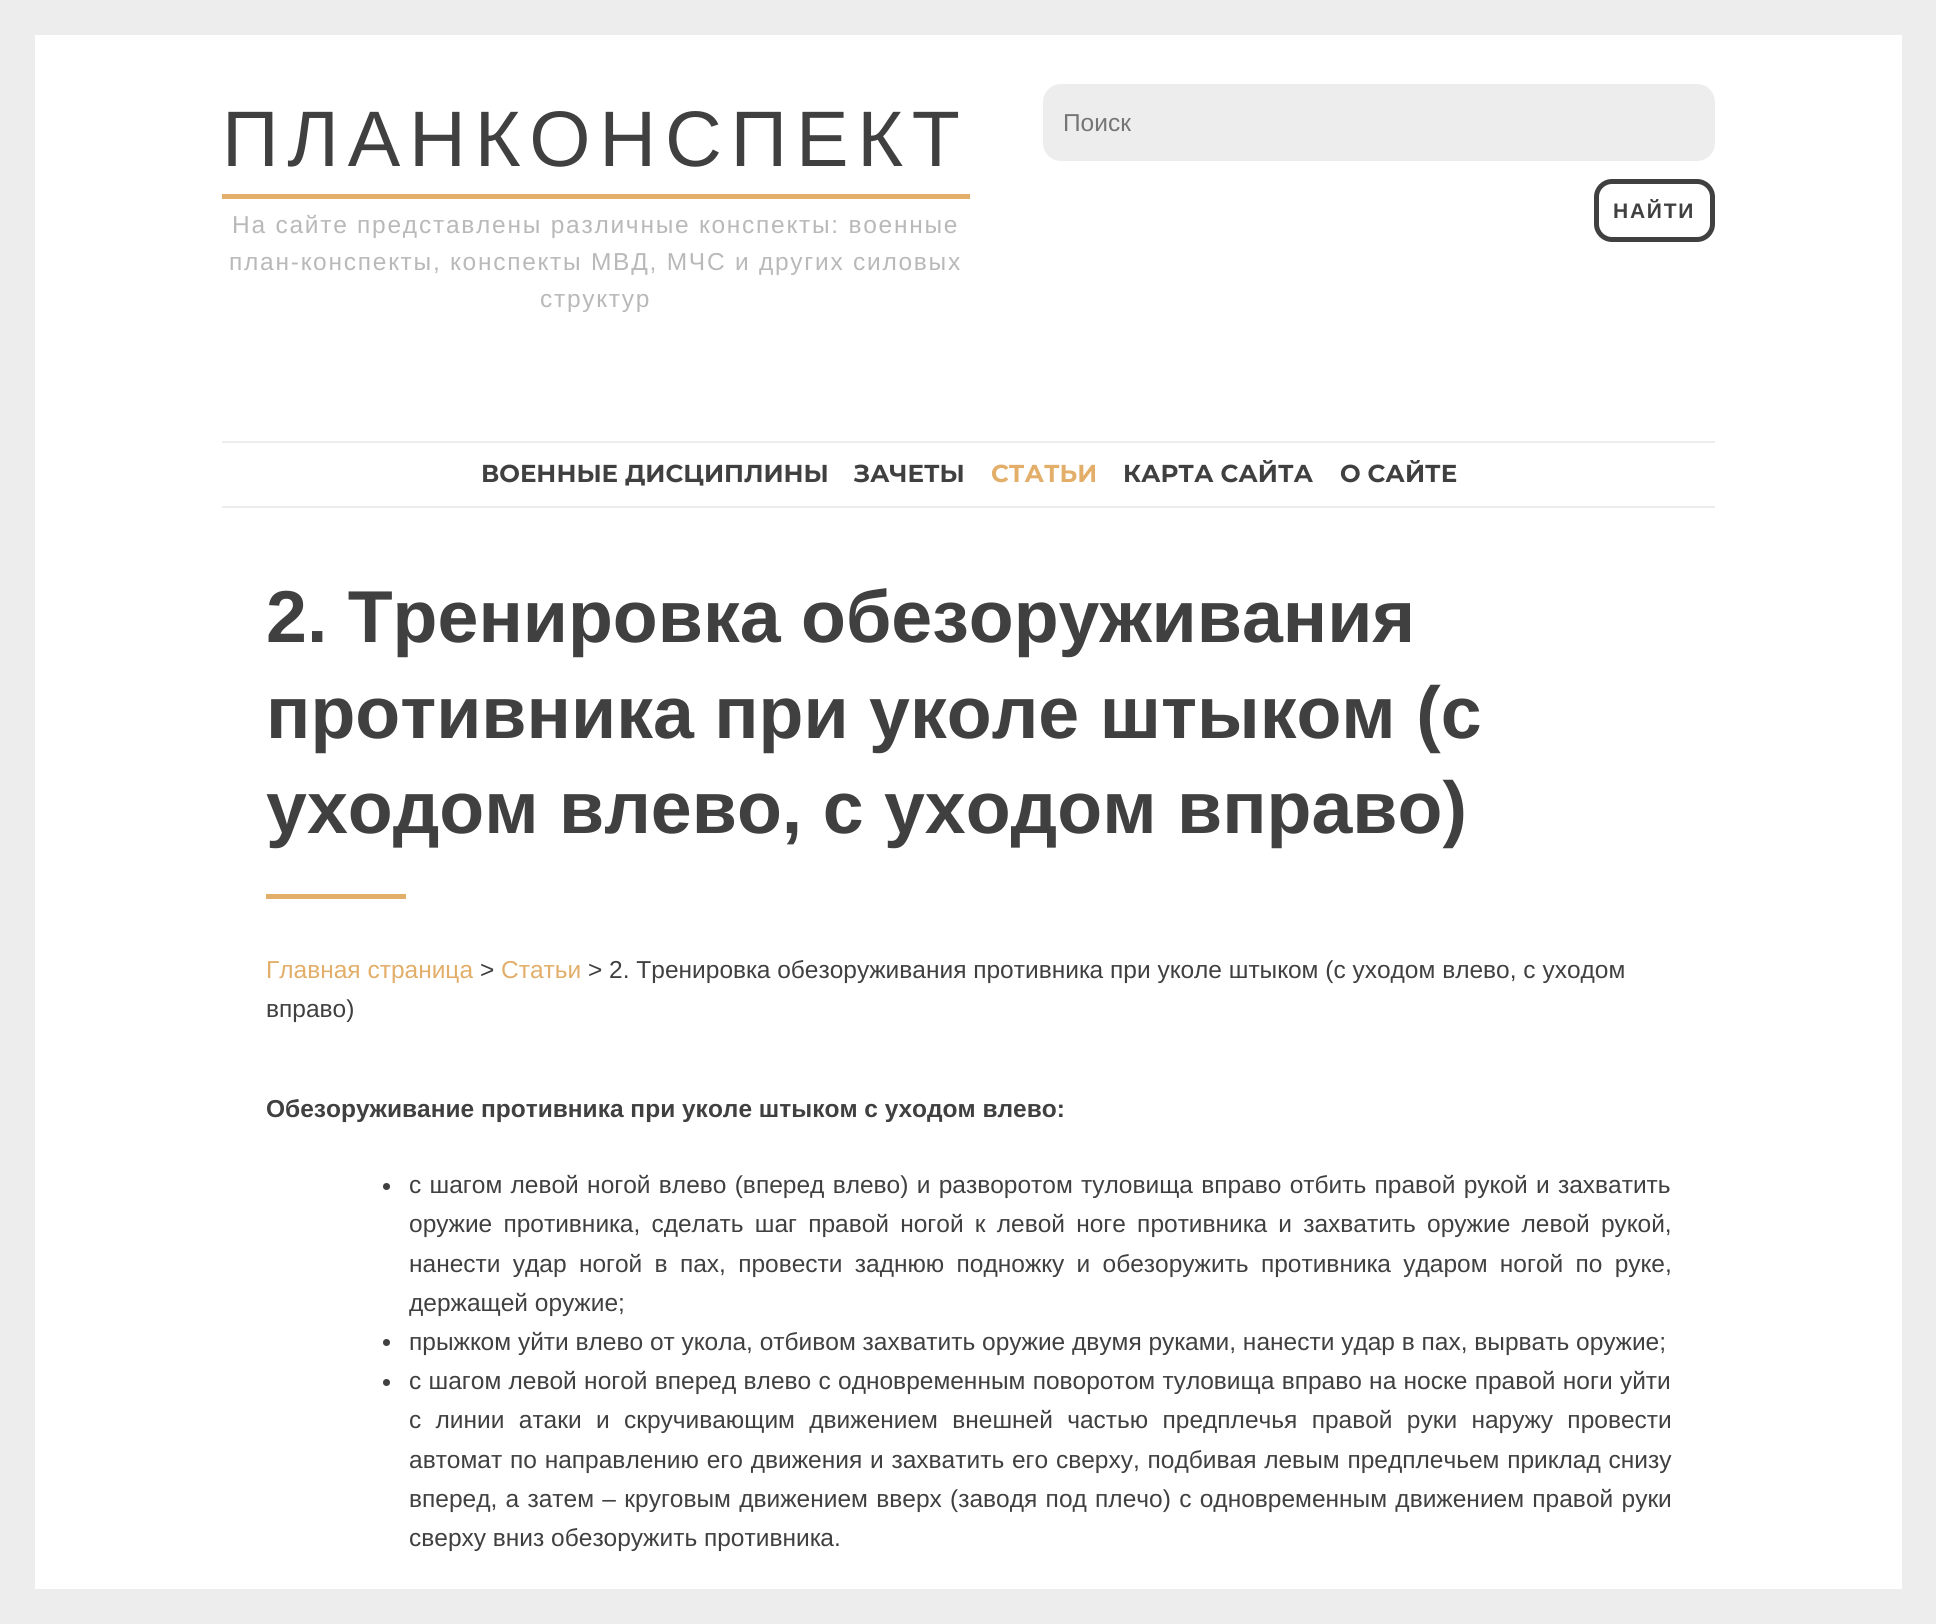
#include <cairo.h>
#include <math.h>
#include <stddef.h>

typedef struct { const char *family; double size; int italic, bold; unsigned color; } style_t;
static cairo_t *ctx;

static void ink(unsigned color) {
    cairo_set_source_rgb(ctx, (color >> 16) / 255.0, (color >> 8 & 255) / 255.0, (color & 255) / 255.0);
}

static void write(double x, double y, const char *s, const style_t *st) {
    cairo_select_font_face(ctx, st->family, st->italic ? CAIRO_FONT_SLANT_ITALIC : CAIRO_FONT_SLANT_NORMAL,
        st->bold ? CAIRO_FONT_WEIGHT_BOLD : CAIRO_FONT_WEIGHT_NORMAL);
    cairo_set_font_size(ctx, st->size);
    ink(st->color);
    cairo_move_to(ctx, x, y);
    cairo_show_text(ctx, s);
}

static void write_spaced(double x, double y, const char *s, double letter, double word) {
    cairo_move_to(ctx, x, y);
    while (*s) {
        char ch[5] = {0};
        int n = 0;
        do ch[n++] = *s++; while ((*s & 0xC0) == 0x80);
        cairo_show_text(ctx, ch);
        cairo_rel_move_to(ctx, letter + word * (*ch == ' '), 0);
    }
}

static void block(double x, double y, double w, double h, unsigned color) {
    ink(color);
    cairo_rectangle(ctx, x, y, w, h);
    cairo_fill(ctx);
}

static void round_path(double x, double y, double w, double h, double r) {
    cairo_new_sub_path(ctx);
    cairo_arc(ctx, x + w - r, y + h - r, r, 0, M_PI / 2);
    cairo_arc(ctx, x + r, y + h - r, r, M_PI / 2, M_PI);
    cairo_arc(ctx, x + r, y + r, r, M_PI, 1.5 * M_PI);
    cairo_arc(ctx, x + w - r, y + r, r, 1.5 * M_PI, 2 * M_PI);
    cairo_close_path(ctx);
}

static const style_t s1 = {"Liberation Sans", 24.5, 0, 0, 0x757575};
static const style_t s2 = {"Montserrat", 24.5, 0, 1, 0x404040};
static const style_t s3 = {"Montserrat", 24.5, 0, 1, 0xe2ae69};
static const style_t s4 = {"Liberation Sans", 73.5, 0, 1, 0x404040};
static const style_t s5 = {"Liberation Sans", 24.5, 0, 0, 0xe2ae69};
static const style_t s6 = {"Liberation Sans", 24.5, 0, 0, 0x404040};
static const style_t s7 = {"Liberation Sans", 24.5, 0, 1, 0x404040};

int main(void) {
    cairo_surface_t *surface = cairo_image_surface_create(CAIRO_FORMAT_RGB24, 1936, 1624);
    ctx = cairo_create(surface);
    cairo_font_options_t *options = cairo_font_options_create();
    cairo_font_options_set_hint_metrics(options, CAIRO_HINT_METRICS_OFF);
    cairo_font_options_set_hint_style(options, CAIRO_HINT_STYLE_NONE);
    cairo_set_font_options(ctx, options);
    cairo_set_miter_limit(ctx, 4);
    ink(0xffffff);
    cairo_paint(ctx);
    block(0, 0, 35, 1624, 0xededed);
    block(35, 0, 1867, 35, 0xededed);
    block(1902, 0, 34, 1624, 0xededed);
    cairo_select_font_face(ctx, "Liberation Sans", CAIRO_FONT_SLANT_NORMAL, CAIRO_FONT_WEIGHT_NORMAL);
    cairo_set_font_size(ctx, 78.75);
    ink(0x404040);
    write_spaced(222, 166, "ПЛАНКОНСПЕКТ", 8.75, 0);
    block(222, 194, 748, 5, 0xe2ae69);
    cairo_set_font_size(ctx, 24.5);
    ink(0xb9b9b9);
    write_spaced(232, 233, "На сайте представлены различные конспекты: военные", 1.75, 0);
    write_spaced(229, 270, "план-конспекты, конспекты МВД, МЧС и других силовых", 1.75, 0);
    write_spaced(540, 307, "структур", 1.75, 0);
    ink(0xededed);
    round_path(1043, 84, 672, 77, 18);
    cairo_fill(ctx);
    write(1063, 131, "Поиск", &s1);
    round_path(1596.5, 181.5, 116, 58, 15.5);
    ink(0x404040);
    cairo_set_line_width(ctx, 5);
    cairo_stroke(ctx);
    cairo_select_font_face(ctx, "Liberation Sans", CAIRO_FONT_SLANT_NORMAL, CAIRO_FONT_WEIGHT_BOLD);
    cairo_set_font_size(ctx, 21);
    write_spaced(1613, 218, "НАЙТИ", 1.75, 0);
    block(222, 441, 1493, 2, 0xededed);
    block(222, 506, 1493, 2, 0xededed);
    write(481, 482, "ВОЕННЫЕ ДИСЦИПЛИНЫ", &s2);
    write(854, 482, "ЗАЧЕТЫ", &s2);
    write(991, 482, "СТАТЬИ", &s3);
    write(1123, 482, "КАРТА САЙТА", &s2);
    write(1340, 482, "О САЙТЕ", &s2);
    write(266, 642, "2. Тренировка обезоруживания", &s4);
    write(266, 738, "противника при уколе штыком (с", &s4);
    write(266, 833, "уходом влево, с уходом вправо)", &s4);
    block(266, 894, 140, 5, 0xe2ae69);
    write(266, 978, "Главная страница", &s5);
    write(480, 978, ">", &s6);
    write(501, 978, "Статьи", &s5);
    write(588, 978, "> 2. Тренировка обезоруживания противника при уколе штыком (с уходом влево, с уходом", &s6);
    write(266, 1017, "вправо)", &s6);
    write(266, 1117, "Обезоруживание противника при уколе штыком с уходом влево:", &s7);
    cairo_new_path(ctx);
    cairo_arc(ctx, 386.5, 1186.5, 3.5, 0, 2 * M_PI);
    cairo_fill(ctx);
    cairo_select_font_face(ctx, "Liberation Sans", CAIRO_FONT_SLANT_NORMAL, CAIRO_FONT_WEIGHT_NORMAL);
    write_spaced(409, 1193, "с шагом левой ногой влево (вперед влево) и разворотом туловища вправо отбить правой рукой и захватить", 0, 1.5);
    write_spaced(409, 1232, "оружие противника, сделать шаг правой ногой к левой ноге противника и захватить оружие левой рукой,", 0, 4.4);
    write_spaced(409, 1272, "нанести удар ногой в пах, провести заднюю подножку и обезоружить противника ударом ногой по руке,", 0, 5.5);
    write(409, 1311, "держащей оружие;", &s6);
    cairo_new_path(ctx);
    cairo_arc(ctx, 386.5, 1342.5, 3.5, 0, 2 * M_PI);
    cairo_fill(ctx);
    write(409, 1350, "прыжком уйти влево от укола, отбивом захватить оружие двумя руками, нанести удар в пах, вырвать оружие;", &s6);
    cairo_new_path(ctx);
    cairo_arc(ctx, 386.5, 1382.5, 3.5, 0, 2 * M_PI);
    cairo_fill(ctx);
    write_spaced(409, 1389, "с шагом левой ногой вперед влево с одновременным поворотом туловища вправо на носке правой ноги уйти", 0, 0.5);
    write_spaced(409, 1428, "с линии атаки и скручивающим движением внешней частью предплечья правой руки наружу провести", 0, 7.5);
    write_spaced(409, 1468, "автомат по направлению его движения и захватить его сверху, подбивая левым предплечьем приклад снизу", 0, 1);
    write_spaced(409, 1507, "вперед, а затем – круговым движением вверх (заводя под плечо) с одновременным движением правой руки", 0, 1.5);
    write(409, 1546, "сверху вниз обезоружить противника.", &s6);
    block(35, 1589, 1867, 35, 0xededed);
    cairo_surface_write_to_png(surface, "screenshot.png");
    cairo_font_options_destroy(options);
    cairo_destroy(ctx);
    cairo_surface_destroy(surface);
    return 0;
}
